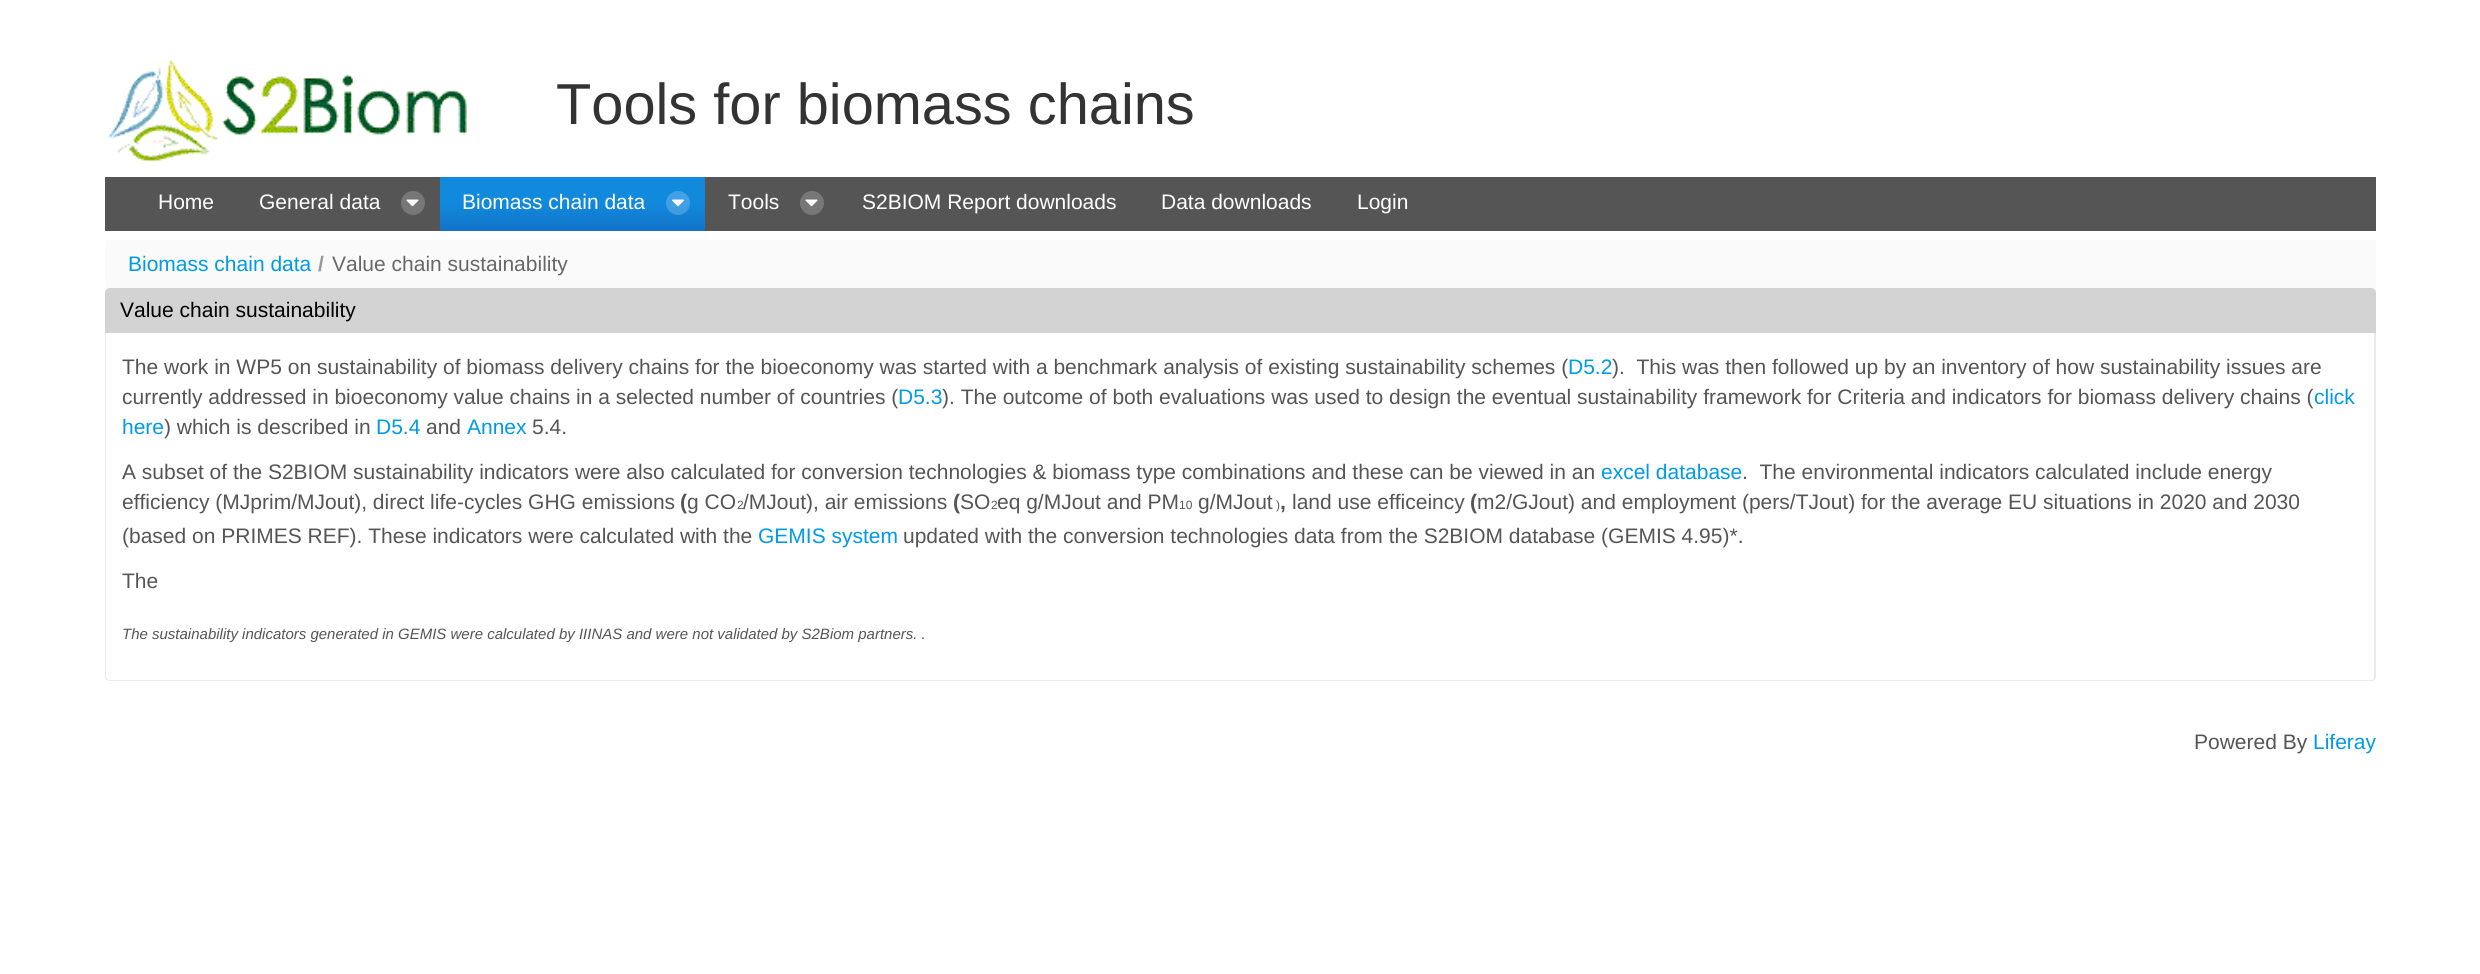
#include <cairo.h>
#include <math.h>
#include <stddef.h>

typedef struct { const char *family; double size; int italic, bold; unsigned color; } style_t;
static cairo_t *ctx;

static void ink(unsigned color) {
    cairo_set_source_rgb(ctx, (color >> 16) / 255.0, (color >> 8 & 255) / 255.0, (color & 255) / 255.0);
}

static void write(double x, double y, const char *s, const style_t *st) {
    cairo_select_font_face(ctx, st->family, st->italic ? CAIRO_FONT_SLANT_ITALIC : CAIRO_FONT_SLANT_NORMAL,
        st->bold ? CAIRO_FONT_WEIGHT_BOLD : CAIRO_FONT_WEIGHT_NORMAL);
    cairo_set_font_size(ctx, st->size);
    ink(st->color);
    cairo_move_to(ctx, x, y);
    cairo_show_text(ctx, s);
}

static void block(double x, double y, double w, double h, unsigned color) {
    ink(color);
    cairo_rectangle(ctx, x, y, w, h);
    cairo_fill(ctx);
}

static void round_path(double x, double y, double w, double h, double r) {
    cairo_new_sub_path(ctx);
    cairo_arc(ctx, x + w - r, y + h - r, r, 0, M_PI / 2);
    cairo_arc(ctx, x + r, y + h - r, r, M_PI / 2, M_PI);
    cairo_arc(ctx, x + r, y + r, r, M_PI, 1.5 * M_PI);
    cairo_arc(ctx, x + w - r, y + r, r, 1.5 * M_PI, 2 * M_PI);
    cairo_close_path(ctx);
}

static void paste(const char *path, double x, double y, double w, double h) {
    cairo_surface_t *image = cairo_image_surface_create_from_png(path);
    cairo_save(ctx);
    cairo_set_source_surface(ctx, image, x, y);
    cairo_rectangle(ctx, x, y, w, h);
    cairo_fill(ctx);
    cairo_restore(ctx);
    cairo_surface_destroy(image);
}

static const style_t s1 = {"Liberation Sans", 57.75, 0, 0, 0x333333};
static const style_t s2 = {"Liberation Sans", 21, 0, 0, 0xffffff};
static const style_t s3 = {"Liberation Sans", 21, 0, 0, 0x009ae5};
static const style_t s4 = {"Liberation Sans", 21, 0, 1, 0x999999};
static const style_t s5 = {"Liberation Sans", 21, 0, 0, 0x676767};
static const style_t s6 = {"Liberation Sans", 21, 0, 0, 0x000000};
static const style_t s7 = {"Liberation Sans", 21, 0, 0, 0x555555};
static const style_t s8 = {"Liberation Sans", 21, 0, 1, 0x555555};
static const style_t s9 = {"Liberation Sans", 12, 0, 0, 0x555555};
static const style_t s10 = {"Liberation Sans", 15, 1, 0, 0x555555};

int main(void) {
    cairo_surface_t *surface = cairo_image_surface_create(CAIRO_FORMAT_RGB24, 2480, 974);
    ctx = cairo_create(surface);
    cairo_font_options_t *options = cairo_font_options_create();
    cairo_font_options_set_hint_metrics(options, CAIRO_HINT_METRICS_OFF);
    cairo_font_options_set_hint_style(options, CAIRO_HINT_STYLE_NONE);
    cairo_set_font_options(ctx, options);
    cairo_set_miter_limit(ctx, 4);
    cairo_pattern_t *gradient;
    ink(0xffffff);
    cairo_paint(ctx);
    paste("pic1.png", 108, 60, 359, 102);
    write(556, 124, "Tools for biomass chains", &s1);
    block(105, 177, 2271, 54, 0x555555);
    write(158, 209, "Home", &s2);
    write(259, 209, "General data", &s2);
    ink(0x777777);
    cairo_new_path(ctx);
    cairo_arc(ctx, 413, 203, 12, 0, 2 * M_PI);
    cairo_fill(ctx);
    paste("pic2.png", 406, 199, 13, 8);
    gradient = cairo_pattern_create_linear(572, 177, 572, 231);
    cairo_pattern_add_color_stop_rgba(gradient, 0, 0.067, 0.541, 0.871, 1);
    cairo_pattern_add_color_stop_rgba(gradient, 0.47, 0.067, 0.541, 0.871, 1);
    cairo_pattern_add_color_stop_rgba(gradient, 1, 0.071, 0.451, 0.78, 1);
    cairo_set_source(ctx, gradient);
    cairo_pattern_destroy(gradient);
    cairo_rectangle(ctx, 440, 177, 265, 54);
    cairo_fill(ctx);
    write(462, 209, "Biomass chain data", &s2);
    cairo_set_source_rgba(ctx, 1, 1, 1, 0.2);
    cairo_new_path(ctx);
    cairo_arc(ctx, 678, 203, 12, 0, 2 * M_PI);
    cairo_fill(ctx);
    paste("pic3.png", 672, 199, 12, 8);
    write(728, 209, "Tools", &s2);
    ink(0x777777);
    cairo_new_path(ctx);
    cairo_arc(ctx, 812, 203, 12, 0, 2 * M_PI);
    cairo_fill(ctx);
    paste("pic2.png", 805, 199, 13, 8);
    write(862, 209, "S2BIOM Report downloads", &s2);
    write(1161, 209, "Data downloads", &s2);
    write(1357, 209, "Login", &s2);
    ink(0xfafafa);
    round_path(105, 240, 2271, 48, 3);
    cairo_fill(ctx);
    write(128, 271, "Biomass chain data", &s3);
    write(318, 271, "/", &s4);
    write(332, 271, "Value chain sustainability", &s5);
    ink(0xd3d3d3);
    cairo_new_path(ctx);
    cairo_move_to(ctx, 110, 288);
    cairo_line_to(ctx, 2371, 288);
    cairo_curve_to(ctx, 2374, 288, 2376, 290, 2376, 293);
    cairo_line_to(ctx, 2376, 333);
    cairo_line_to(ctx, 105, 333);
    cairo_line_to(ctx, 105, 293);
    cairo_curve_to(ctx, 105, 290, 107, 288, 110, 288);
    cairo_close_path(ctx);
    cairo_fill(ctx);
    write(120, 317, "Value chain sustainability", &s6);
    ink(0xeaeaea);
    cairo_set_fill_rule(ctx, CAIRO_FILL_RULE_EVEN_ODD);
    cairo_new_path(ctx);
    cairo_move_to(ctx, 105, 333);
    cairo_line_to(ctx, 2376, 333);
    cairo_line_to(ctx, 2376, 676);
    cairo_curve_to(ctx, 2376, 679, 2374, 681, 2372, 681);
    cairo_line_to(ctx, 110, 681);
    cairo_curve_to(ctx, 107, 681, 105, 679, 105, 676);
    cairo_close_path(ctx);
    cairo_move_to(ctx, 106, 333);
    cairo_line_to(ctx, 2374, 333);
    cairo_line_to(ctx, 2374, 676);
    cairo_curve_to(ctx, 2374, 678, 2373, 680, 2372, 680);
    cairo_line_to(ctx, 110, 680);
    cairo_curve_to(ctx, 108, 680, 106, 678, 106, 676);
    cairo_close_path(ctx);
    cairo_fill(ctx);
    write(122, 374, "The work in WP5 on sustainability of biomass delivery chains for the bioeconomy was started with a benchmark analysis of existing sustainability schemes (", &s7);
    write(1568, 374, "D5.2", &s3);
    write(1612, 374, ").  This was then followed up by an inventory of how sustainability issues are", &s7);
    write(122, 404, "currently addressed in bioeconomy value chains in a selected number of countries (", &s7);
    write(898, 404, "D5.3", &s3);
    write(942, 404, "). The outcome of both evaluations was used to design the eventual sustainability framework for Criteria and indicators for biomass delivery chains (", &s7);
    write(2314, 404, "click", &s3);
    write(122, 434, "here", &s3);
    write(164, 434, ") which is described in", &s7);
    write(376, 434, "D5.4", &s3);
    write(426, 434, "and", &s7);
    write(467, 434, "Annex", &s3);
    write(532, 434, "5.4.", &s7);
    write(122, 479, "A subset of the S2BIOM sustainability indicators were also calculated for conversion technologies & biomass type combinations and these can be viewed in an", &s7);
    write(1601, 479, "excel database", &s3);
    write(1742, 479, ".  The environmental indicators calculated include energy", &s7);
    write(122, 509, "efficiency (MJprim/MJout), direct life-cycles GHG emissions", &s7);
    write(680, 509, "(", &s8);
    write(687, 509, "g CO", &s7);
    write(737, 509, "2", &s9);
    write(743, 509, "/MJout), air emissions", &s7);
    write(953, 509, "(", &s8);
    write(960, 509, "SO", &s7);
    write(991, 509, "2", &s9);
    write(997, 509, "eq g/MJout and PM", &s7);
    write(1179, 509, "10", &s9);
    write(1198, 509, "g/MJout", &s7);
    write(1276, 509, ")", &s9);
    write(1280, 509, ",", &s8);
    write(1292, 509, "land use efficeincy", &s7);
    write(1470, 509, "(", &s8);
    write(1477, 509, "m2/GJout) and employment (pers/TJout) for the average EU situations in 2020 and 2030", &s7);
    write(122, 543, "(based on PRIMES REF). These indicators were calculated with the", &s7);
    write(758, 543, "GEMIS system", &s3);
    write(903, 543, "updated with the conversion technologies data from the S2BIOM database (GEMIS 4.95)*.", &s7);
    write(122, 588, "The", &s7);
    write(122, 639, "The sustainability indicators generated in GEMIS were calculated by IIINAS and were not validated by S2Biom partners. .", &s10);
    write(2194, 749, "Powered By", &s7);
    write(2313, 749, "Liferay", &s3);
    cairo_surface_write_to_png(surface, "screenshot.png");
    cairo_font_options_destroy(options);
    cairo_destroy(ctx);
    cairo_surface_destroy(surface);
    return 0;
}
